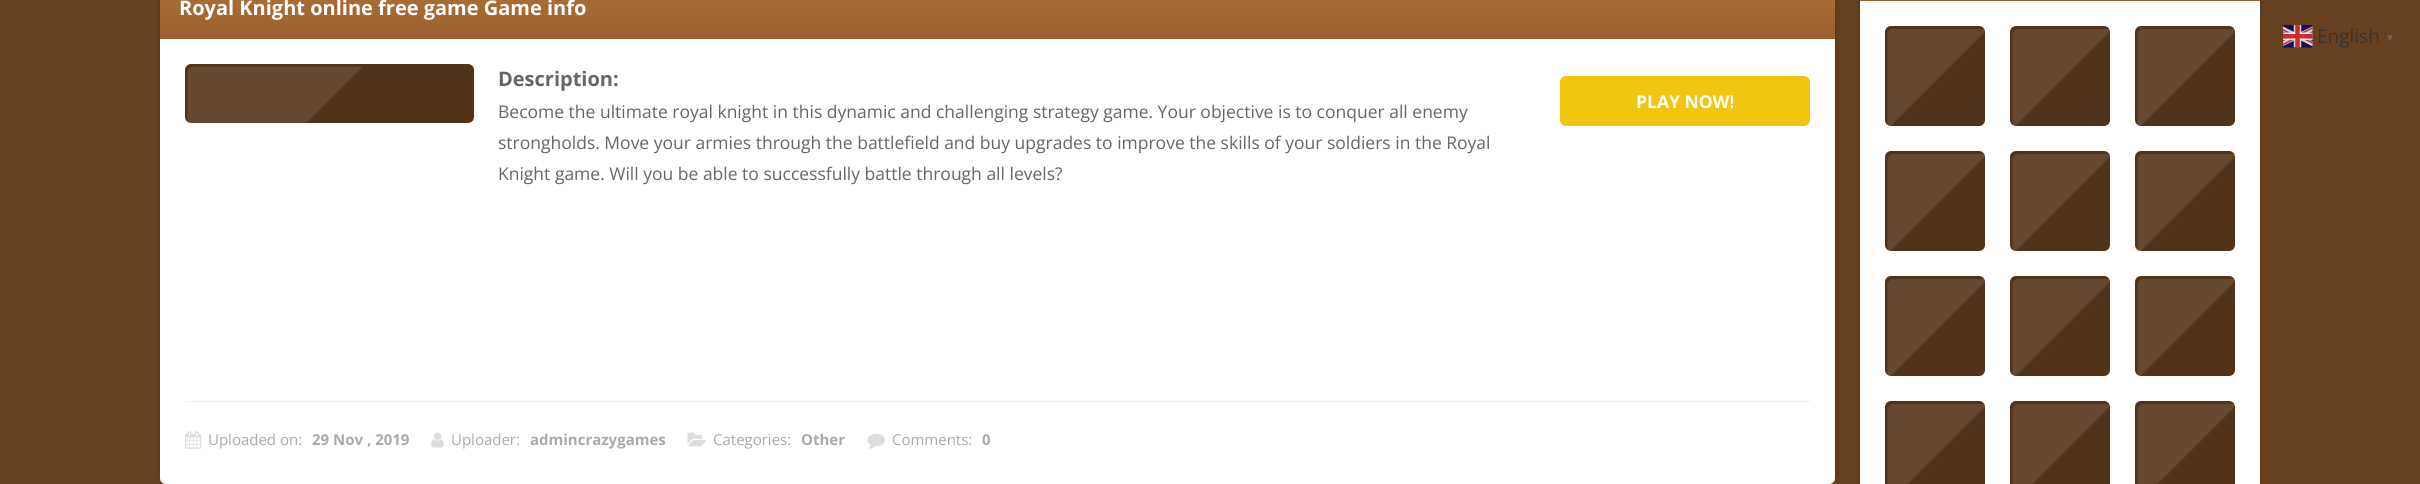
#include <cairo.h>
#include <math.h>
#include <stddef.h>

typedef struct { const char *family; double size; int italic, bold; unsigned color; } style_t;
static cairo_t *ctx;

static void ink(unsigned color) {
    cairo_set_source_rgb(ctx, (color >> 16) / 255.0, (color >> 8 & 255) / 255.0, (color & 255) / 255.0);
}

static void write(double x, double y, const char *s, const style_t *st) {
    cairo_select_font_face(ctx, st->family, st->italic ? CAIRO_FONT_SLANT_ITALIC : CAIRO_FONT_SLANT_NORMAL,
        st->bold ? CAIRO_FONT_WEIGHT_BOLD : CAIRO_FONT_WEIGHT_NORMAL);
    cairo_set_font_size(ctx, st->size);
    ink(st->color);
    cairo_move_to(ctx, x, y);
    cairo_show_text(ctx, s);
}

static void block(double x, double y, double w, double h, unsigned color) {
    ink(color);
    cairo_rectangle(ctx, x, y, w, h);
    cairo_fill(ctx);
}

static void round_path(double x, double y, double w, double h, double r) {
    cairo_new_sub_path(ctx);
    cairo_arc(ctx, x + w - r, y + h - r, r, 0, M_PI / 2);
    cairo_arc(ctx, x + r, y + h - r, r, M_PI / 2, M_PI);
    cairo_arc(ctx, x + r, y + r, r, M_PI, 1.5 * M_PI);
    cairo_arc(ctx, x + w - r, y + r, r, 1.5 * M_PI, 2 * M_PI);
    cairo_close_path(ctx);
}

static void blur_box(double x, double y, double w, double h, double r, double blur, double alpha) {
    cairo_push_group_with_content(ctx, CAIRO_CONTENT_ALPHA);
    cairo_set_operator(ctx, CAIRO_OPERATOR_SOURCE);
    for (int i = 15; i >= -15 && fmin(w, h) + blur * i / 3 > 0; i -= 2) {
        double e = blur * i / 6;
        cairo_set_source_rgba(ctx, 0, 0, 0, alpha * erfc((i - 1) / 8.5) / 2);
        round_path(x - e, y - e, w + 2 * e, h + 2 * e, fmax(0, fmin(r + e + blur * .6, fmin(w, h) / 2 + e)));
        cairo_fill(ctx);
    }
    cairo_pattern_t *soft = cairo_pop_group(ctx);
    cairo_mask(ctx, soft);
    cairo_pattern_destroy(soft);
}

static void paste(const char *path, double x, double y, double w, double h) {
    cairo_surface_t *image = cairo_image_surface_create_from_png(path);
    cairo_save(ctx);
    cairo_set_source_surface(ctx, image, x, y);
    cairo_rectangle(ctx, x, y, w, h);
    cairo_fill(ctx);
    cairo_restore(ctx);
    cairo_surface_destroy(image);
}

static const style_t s1 = {"Open Sans", 20, 0, 1, 0xffffff};
static const style_t s2 = {"Open Sans", 20, 0, 1, 0x666666};
static const style_t s3 = {"Open Sans", 17.5, 0, 0, 0x666666};
static const style_t s4 = {"Open Sans", 17.5, 0, 1, 0xffffff};
static const style_t s5 = {"Open Sans", 15, 0, 0, 0xaaaaaa};
static const style_t s6 = {"Open Sans", 15, 0, 1, 0xaaaaaa};
static const style_t s7 = {"Open Sans", 19, 0, 0, 0x333333};
static const style_t s8 = {"Liberation Sans", 10, 0, 1, 0x666666};

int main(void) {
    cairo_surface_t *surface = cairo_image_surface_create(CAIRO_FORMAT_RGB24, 2420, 484);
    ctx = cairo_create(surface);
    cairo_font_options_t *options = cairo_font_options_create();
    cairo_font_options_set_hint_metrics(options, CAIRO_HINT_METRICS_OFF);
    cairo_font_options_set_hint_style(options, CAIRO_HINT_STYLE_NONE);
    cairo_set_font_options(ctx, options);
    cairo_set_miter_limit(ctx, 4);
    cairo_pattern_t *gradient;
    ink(0x67401f);
    cairo_paint(ctx);
    ink(0x523319);
    blur_box(160, -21, 1675, 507, 13, 3, 1);
    ink(0xffffff);
    cairo_new_path(ctx);
    cairo_move_to(ctx, 173, -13);
    cairo_line_to(ctx, 1822, -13);
    cairo_curve_to(ctx, 1829, -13, 1835, -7, 1835, 0);
    cairo_line_to(ctx, 1835, 478);
    cairo_curve_to(ctx, 1835, 481.5, 1832.5, 484, 1829, 484);
    cairo_line_to(ctx, 166, 484);
    cairo_curve_to(ctx, 162.5, 484, 160, 481.5, 160, 478);
    cairo_line_to(ctx, 160, 0);
    cairo_curve_to(ctx, 160, -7, 166, -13, 173, -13);
    cairo_close_path(ctx);
    cairo_fill(ctx);
    gradient = cairo_pattern_create_linear(998, -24, 998, 39);
    cairo_pattern_add_color_stop_rgba(gradient, 0, 0.686, 0.451, 0.22, 1);
    cairo_pattern_add_color_stop_rgba(gradient, 1, 0.608, 0.376, 0.184, 1);
    cairo_set_source(ctx, gradient);
    cairo_pattern_destroy(gradient);
    cairo_rectangle(ctx, 160, 0, 1675, 39);
    cairo_fill(ctx);
    write(179, 15, "Royal Knight online free game Game info", &s1);
    ink(0x523319);
    round_path(185, 64, 289, 59, 6);
    cairo_fill(ctx);
    paste("pic1.png", 187, 66, 176, 57);
    write(498, 86, "Description:", &s2);
    write(498, 118, "Become the ultimate royal knight in this dynamic and challenging strategy game. Your objective is to conquer all enemy", &s3);
    write(498, 149, "strongholds. Move your armies through the battlefield and buy upgrades to improve the skills of your soldiers in the Royal", &s3);
    write(498, 180, "Knight game. Will you be able to successfully battle through all levels?", &s3);
    ink(0xf2c510);
    round_path(1560, 76, 250, 50, 6);
    cairo_fill(ctx);
    write(1636, 108, "PLAY NOW!", &s4);
    block(185, 401, 1625, 1, 0xeeeeee);
    paste("pic2.png", 185, 431, 17, 18);
    write(208, 445, "Uploaded on:", &s5);
    write(312, 445, "29 Nov , 2019", &s6);
    paste("pic3.png", 431, 432, 13, 16);
    write(451, 445, "Uploader:", &s5);
    write(530, 445, "admincrazygames", &s6);
    paste("pic4.png", 687, 432, 19, 15);
    write(713, 445, "Categories:", &s5);
    write(801, 445, "Other", &s6);
    paste("pic5.png", 867, 433, 18, 16);
    write(892, 445, "Comments:", &s5);
    write(982, 445, "0", &s6);
    ink(0x523319);
    blur_box(1860, -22, 400, 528, 13, 3, 1);
    block(1860, 1, 400, 483, 0xffffff);
    gradient = cairo_pattern_create_linear(2060, -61, 2060, 1.3);
    cairo_pattern_add_color_stop_rgba(gradient, 0, 0.686, 0.451, 0.22, 1);
    cairo_pattern_add_color_stop_rgba(gradient, 1, 0.608, 0.376, 0.184, 1);
    cairo_set_source(ctx, gradient);
    cairo_pattern_destroy(gradient);
    cairo_rectangle(ctx, 1860, 0, 400, 1);
    cairo_fill(ctx);
    ink(0x523319);
    round_path(1885, 26, 100, 100, 6);
    cairo_fill(ctx);
    paste("pic6.png", 1887, 29, 98, 97);
    round_path(2010, 26, 100, 100, 6);
    cairo_fill(ctx);
    paste("pic6.png", 2012, 29, 98, 97);
    round_path(2135, 26, 100, 100, 6);
    cairo_fill(ctx);
    paste("pic6.png", 2137, 29, 98, 97);
    round_path(1885, 151, 100, 100, 6);
    cairo_fill(ctx);
    paste("pic6.png", 1887, 154, 98, 97);
    round_path(2010, 151, 100, 100, 6);
    cairo_fill(ctx);
    paste("pic6.png", 2012, 154, 98, 97);
    round_path(2135, 151, 100, 100, 6);
    cairo_fill(ctx);
    paste("pic6.png", 2137, 154, 98, 97);
    round_path(1885, 276, 100, 100, 6);
    cairo_fill(ctx);
    paste("pic6.png", 1887, 279, 98, 97);
    round_path(2010, 276, 100, 100, 6);
    cairo_fill(ctx);
    paste("pic6.png", 2012, 279, 98, 97);
    round_path(2135, 276, 100, 100, 6);
    cairo_fill(ctx);
    paste("pic6.png", 2137, 279, 98, 97);
    round_path(1885, 401, 100, 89, 6);
    cairo_fill(ctx);
    paste("pic7.png", 1887, 404, 98, 80);
    round_path(2010, 401, 100, 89, 6);
    cairo_fill(ctx);
    paste("pic7.png", 2012, 404, 98, 80);
    round_path(2135, 401, 100, 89, 6);
    cairo_fill(ctx);
    paste("pic7.png", 2137, 404, 98, 80);
    paste("pic8.png", 2283, 25, 30, 23);
    write(2317, 43, "English", &s7);
    write(2385, 41, "▼", &s8);
    cairo_surface_write_to_png(surface, "screenshot.png");
    cairo_font_options_destroy(options);
    cairo_destroy(ctx);
    cairo_surface_destroy(surface);
    return 0;
}
